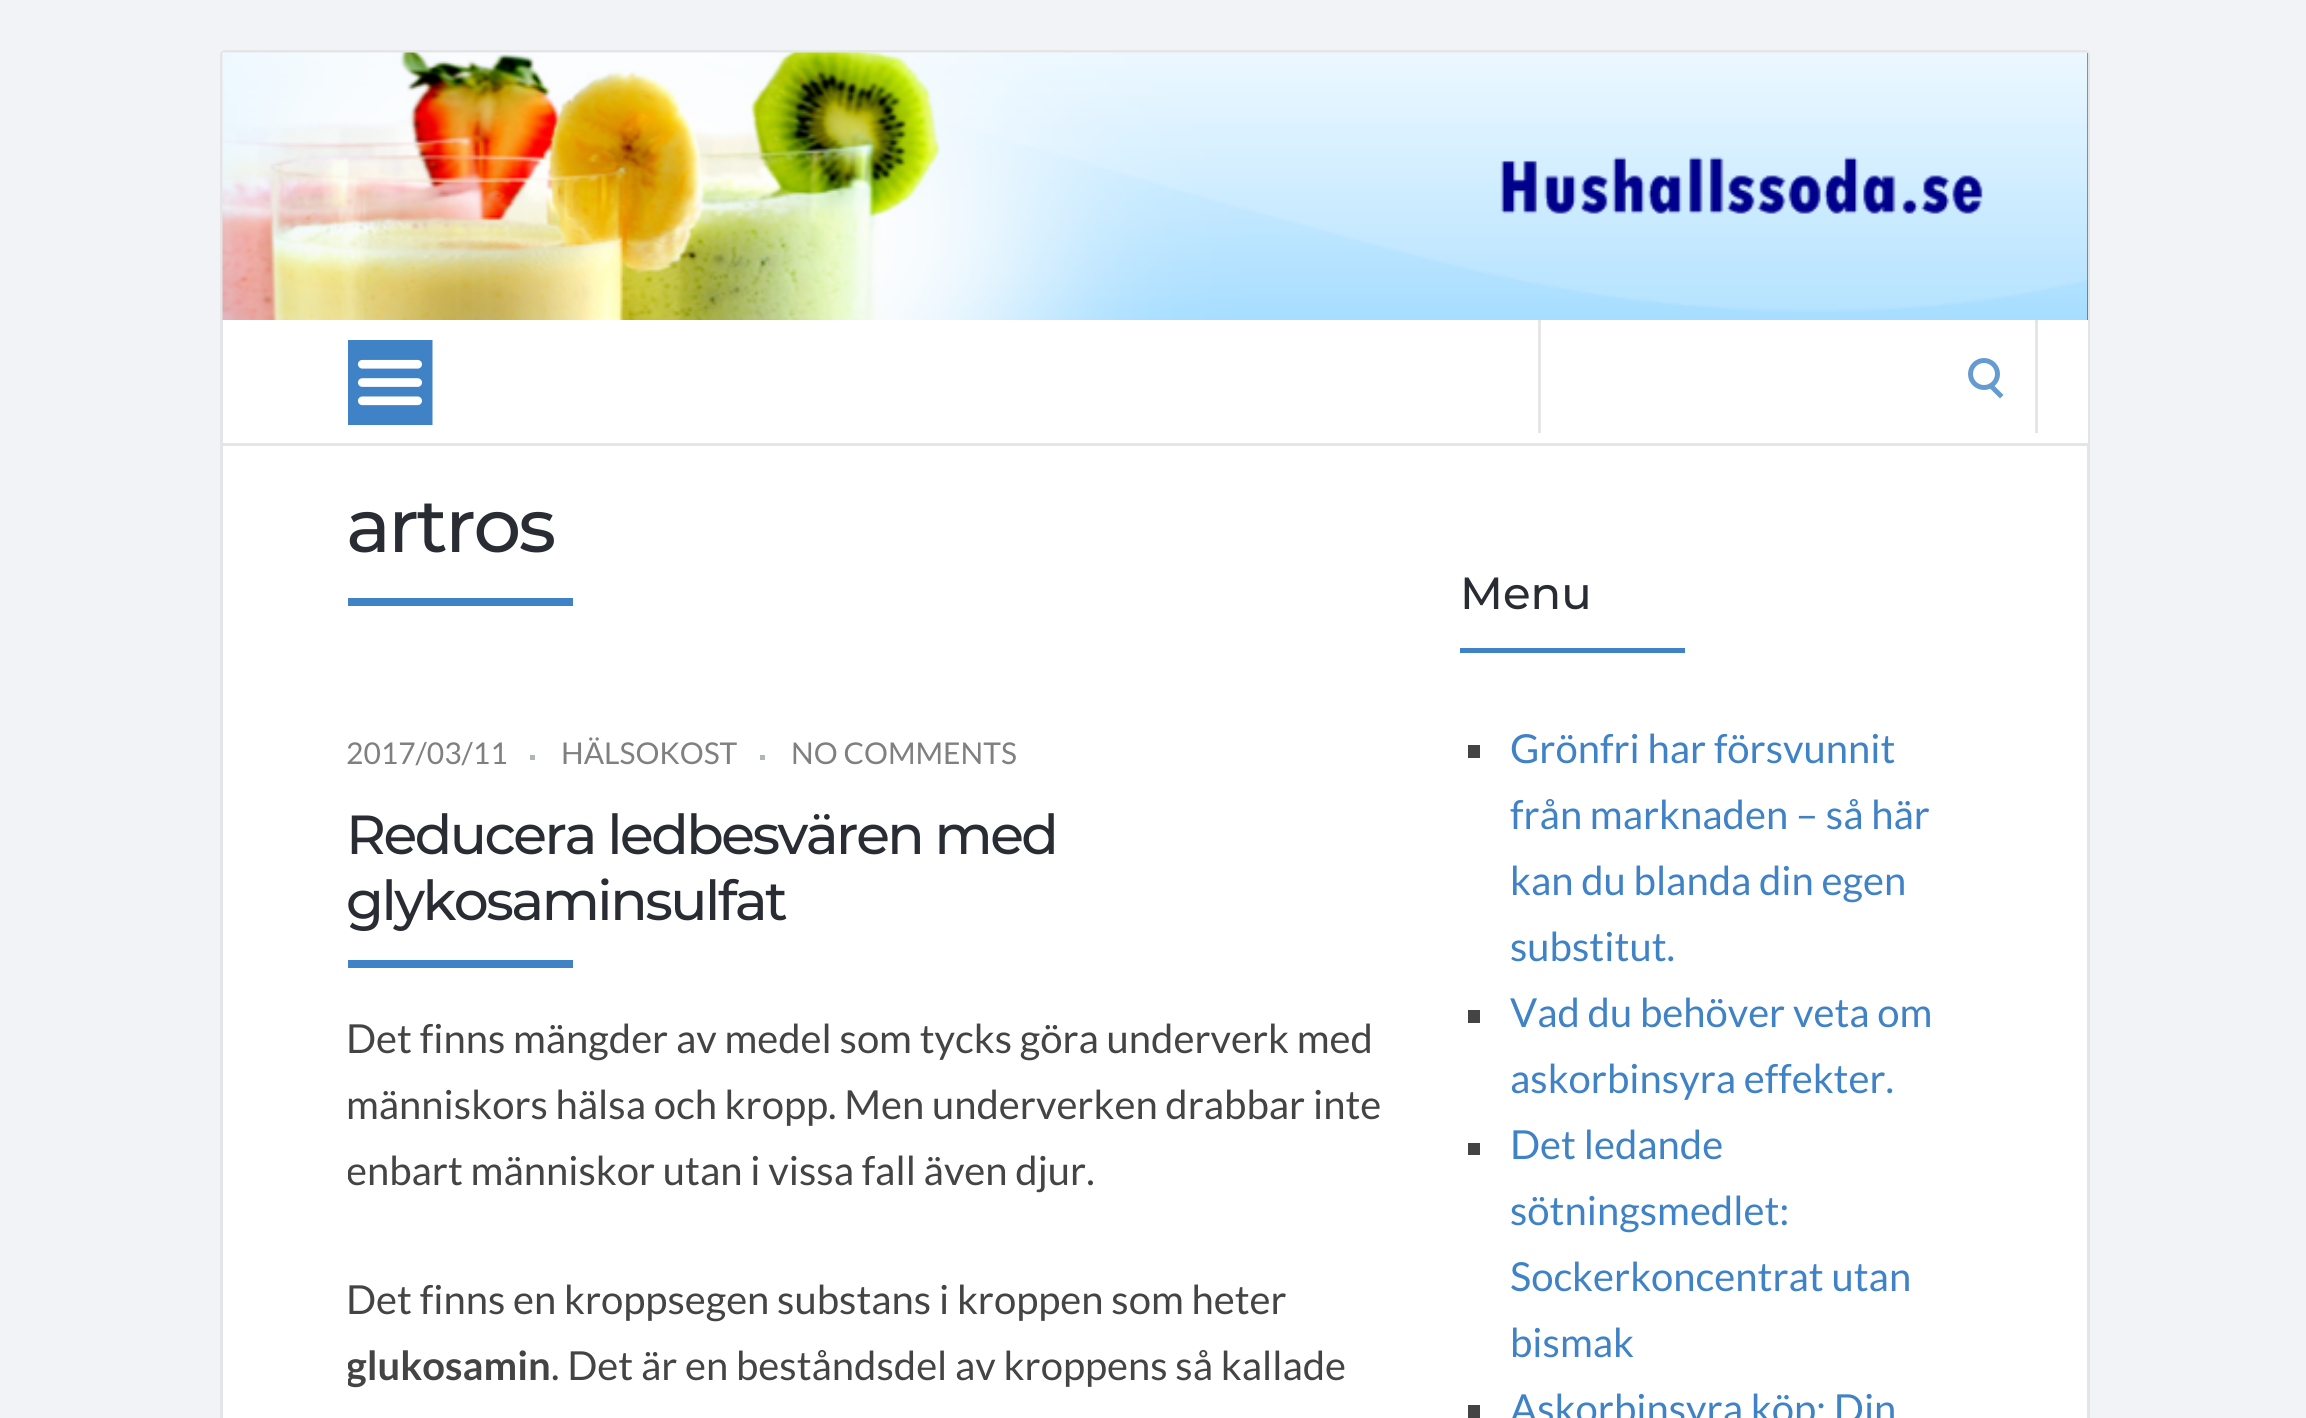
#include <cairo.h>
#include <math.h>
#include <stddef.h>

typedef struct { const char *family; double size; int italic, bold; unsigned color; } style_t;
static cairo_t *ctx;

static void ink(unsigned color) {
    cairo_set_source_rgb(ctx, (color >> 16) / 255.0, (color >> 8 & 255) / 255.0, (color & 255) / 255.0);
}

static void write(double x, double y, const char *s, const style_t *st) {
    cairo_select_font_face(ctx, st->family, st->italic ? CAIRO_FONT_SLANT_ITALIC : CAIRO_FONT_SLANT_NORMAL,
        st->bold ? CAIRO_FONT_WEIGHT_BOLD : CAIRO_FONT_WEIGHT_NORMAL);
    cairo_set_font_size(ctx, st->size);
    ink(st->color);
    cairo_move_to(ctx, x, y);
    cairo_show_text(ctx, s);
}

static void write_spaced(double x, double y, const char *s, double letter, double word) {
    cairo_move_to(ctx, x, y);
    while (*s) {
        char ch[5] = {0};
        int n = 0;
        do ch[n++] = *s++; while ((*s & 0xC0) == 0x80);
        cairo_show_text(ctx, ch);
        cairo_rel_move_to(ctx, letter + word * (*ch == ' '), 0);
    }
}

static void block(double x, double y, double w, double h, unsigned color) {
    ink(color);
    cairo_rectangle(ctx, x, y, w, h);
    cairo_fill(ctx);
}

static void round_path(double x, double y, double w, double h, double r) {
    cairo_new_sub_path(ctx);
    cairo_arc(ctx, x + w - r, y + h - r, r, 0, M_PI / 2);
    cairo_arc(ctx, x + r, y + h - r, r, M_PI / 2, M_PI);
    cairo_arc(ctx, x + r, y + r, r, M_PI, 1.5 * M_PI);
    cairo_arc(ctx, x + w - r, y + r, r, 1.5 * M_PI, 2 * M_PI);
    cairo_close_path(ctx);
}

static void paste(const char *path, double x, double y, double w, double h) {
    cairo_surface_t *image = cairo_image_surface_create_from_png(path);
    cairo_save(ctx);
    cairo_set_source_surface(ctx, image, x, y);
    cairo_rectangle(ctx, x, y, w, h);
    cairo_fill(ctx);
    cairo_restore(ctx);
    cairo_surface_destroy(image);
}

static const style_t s1 = {"Lato", 30, 0, 0, 0x808080};
static const style_t s2 = {"Lato", 40, 0, 0, 0x444444};
static const style_t s3 = {"Lato", 40, 0, 1, 0x444444};
static const style_t s4 = {"Montserrat Medium", 45, 0, 0, 0x292c33};
static const style_t s5 = {"Lato", 40, 0, 0, 0x4082c6};

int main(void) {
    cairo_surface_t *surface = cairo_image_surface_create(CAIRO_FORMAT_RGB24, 2306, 1418);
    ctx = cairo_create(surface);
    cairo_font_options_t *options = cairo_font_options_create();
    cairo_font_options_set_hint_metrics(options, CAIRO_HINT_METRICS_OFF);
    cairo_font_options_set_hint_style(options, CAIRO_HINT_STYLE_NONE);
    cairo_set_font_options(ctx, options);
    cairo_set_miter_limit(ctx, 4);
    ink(0xf1f3f6);
    cairo_paint(ctx);
    ink(0xffffff);
    round_path(221.5, 51.5, 1867, 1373, 3.5);
    cairo_fill_preserve(ctx);
    ink(0xe4e5e7);
    cairo_set_line_width(ctx, 3);
    cairo_stroke(ctx);
    block(2087, 53, 1, 267, 0x292c33);
    paste("pic1.png", 222, 52, 1866, 268);
    block(2087, 320, 1, 123, 0xffffff);
    block(223, 443, 1865, 3, 0xe4e5e7);
    paste("pic2.png", 348, 340, 85, 85);
    block(2035, 320, 3, 113, 0xe4e5e7);
    block(1538, 320, 3, 113, 0xe6e6e6);
    cairo_arc(ctx, 1984, 374, 13.5, 0, 2 * M_PI);
    ink(0x669bd1);
    cairo_set_line_width(ctx, 5);
    cairo_stroke(ctx);
    cairo_new_path(ctx);
    cairo_move_to(ctx, 1989, 387.5);
    cairo_line_to(ctx, 1992.5, 384);
    cairo_line_to(ctx, 2003.5, 395);
    cairo_line_to(ctx, 2000, 398.5);
    cairo_close_path(ctx);
    cairo_fill(ctx);
    cairo_select_font_face(ctx, "Montserrat Medium", CAIRO_FONT_SLANT_NORMAL, CAIRO_FONT_WEIGHT_NORMAL);
    cairo_set_font_size(ctx, 75);
    ink(0x292c33);
    write_spaced(346, 552, "artros", -2.5, 0);
    block(348, 598, 225, 8, 0x4082c6);
    write(346, 764, "2017/03/11", &s1);
    block(530, 755, 5, 5, 0xaeb6b9);
    write(561, 764, "HÄLSOKOST", &s1);
    block(760, 755, 5, 5, 0xaeb6b9);
    write(791, 764, "NO COMMENTS", &s1);
    cairo_select_font_face(ctx, "Montserrat Medium", CAIRO_FONT_SLANT_NORMAL, CAIRO_FONT_WEIGHT_NORMAL);
    cairo_set_font_size(ctx, 55);
    ink(0x292c33);
    write_spaced(346, 854, "Reducera ledbesvären med", -2.5, 0);
    write_spaced(346, 920, "glykosaminsulfat", -2.5, 0);
    block(348, 960, 225, 8, 0x4082c6);
    write(346, 1053, "Det finns mängder av medel som tycks göra underverk med", &s2);
    write(346, 1119, "människors hälsa och kropp. Men underverken drabbar inte", &s2);
    cairo_save(ctx);
    cairo_rectangle(ctx, 348, 730, 1057, 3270);
    cairo_clip(ctx);
    write(346, 1185, "enbart människor utan i vissa fall även djur.", &s2);
    cairo_restore(ctx);
    write(346, 1314, "Det finns en kroppsegen substans i kroppen som heter", &s2);
    cairo_save(ctx);
    cairo_rectangle(ctx, 348, 730, 1057, 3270);
    cairo_clip(ctx);
    write(346, 1380, "glukosamin", &s3);
    cairo_restore(ctx);
    write(551, 1380, ". Det är en beståndsdel av kroppens så kallade", &s2);
    write(1460, 609, "Menu", &s4);
    block(1460, 648, 225, 5, 0x4082c6);
    block(1468, 745, 12, 13, 0x444444);
    write(1510, 763, "Grönfri har försvunnit", &s5);
    write(1510, 829, "från marknaden – så här", &s5);
    write(1510, 895, "kan du blanda din egen", &s5);
    write(1510, 961, "substitut.", &s5);
    block(1468, 1010, 12, 13, 0x444444);
    write(1510, 1027, "Vad du behöver veta om", &s5);
    write(1510, 1093, "askorbinsyra effekter.", &s5);
    block(1468, 1143, 12, 12, 0x444444);
    write(1510, 1159, "Det ledande", &s5);
    write(1510, 1225, "sötningsmedlet:", &s5);
    write(1510, 1291, "Sockerkoncentrat utan", &s5);
    write(1510, 1357, "bismak", &s5);
    block(1468, 1405, 12, 13, 0x444444);
    write(1510, 1423, "Askorbinsyra köp: Din", &s5);
    cairo_surface_write_to_png(surface, "screenshot.png");
    cairo_font_options_destroy(options);
    cairo_destroy(ctx);
    cairo_surface_destroy(surface);
    return 0;
}
